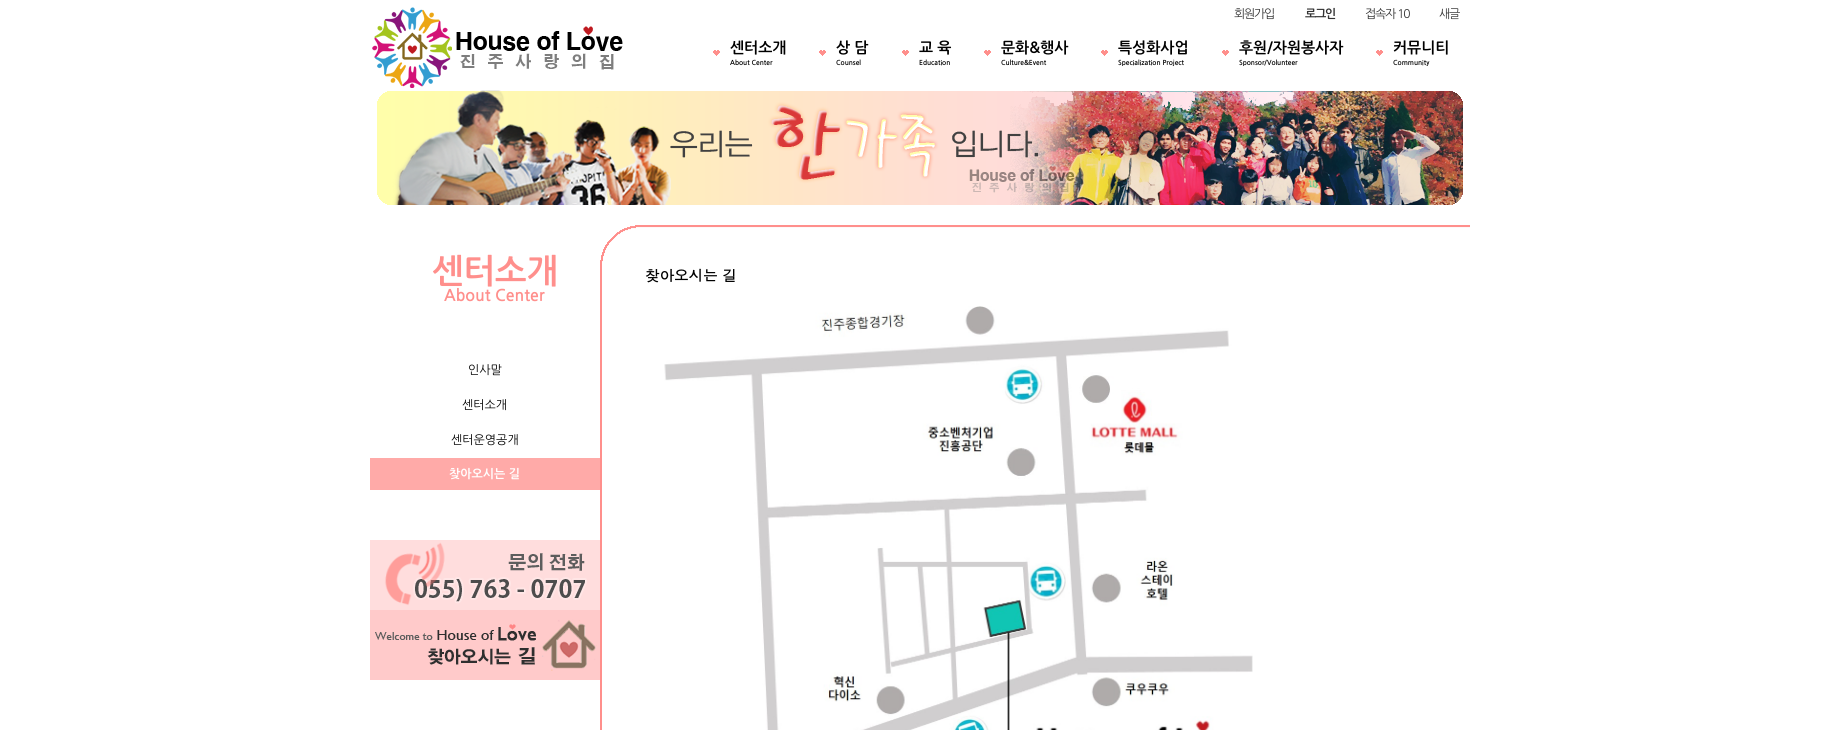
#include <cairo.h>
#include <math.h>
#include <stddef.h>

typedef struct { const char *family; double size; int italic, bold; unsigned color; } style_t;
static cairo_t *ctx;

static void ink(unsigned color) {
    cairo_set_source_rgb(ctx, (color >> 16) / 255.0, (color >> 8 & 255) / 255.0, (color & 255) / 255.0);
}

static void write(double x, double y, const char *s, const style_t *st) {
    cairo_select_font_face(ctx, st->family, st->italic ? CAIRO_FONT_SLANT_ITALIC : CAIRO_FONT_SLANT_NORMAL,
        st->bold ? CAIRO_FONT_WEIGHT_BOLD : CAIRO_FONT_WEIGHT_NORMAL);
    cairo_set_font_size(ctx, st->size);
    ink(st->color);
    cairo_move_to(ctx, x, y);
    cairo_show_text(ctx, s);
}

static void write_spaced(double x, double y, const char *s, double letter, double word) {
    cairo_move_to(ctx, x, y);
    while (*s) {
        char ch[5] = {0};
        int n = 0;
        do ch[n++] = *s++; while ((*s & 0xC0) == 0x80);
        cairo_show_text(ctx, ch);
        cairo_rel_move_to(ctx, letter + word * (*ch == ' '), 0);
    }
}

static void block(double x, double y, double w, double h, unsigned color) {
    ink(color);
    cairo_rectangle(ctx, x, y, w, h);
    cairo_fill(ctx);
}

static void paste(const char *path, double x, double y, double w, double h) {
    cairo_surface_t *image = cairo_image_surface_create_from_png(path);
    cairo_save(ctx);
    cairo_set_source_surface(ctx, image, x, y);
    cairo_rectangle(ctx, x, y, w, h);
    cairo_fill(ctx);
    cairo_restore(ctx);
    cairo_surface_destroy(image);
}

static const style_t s1 = {"NanumGothic", 15, 0, 1, 0x000000};
static const style_t s2 = {"NanumGothic", 6.75, 0, 1, 0x000000};
static const style_t s3 = {"NanumGothic", 33.5, 0, 1, 0xff8f8c};
static const style_t s4 = {"NanumGothic", 16, 0, 1, 0xff8f8c};
static const style_t s5 = {"NanumGothic", 12, 0, 0, 0x000000};
static const style_t s6 = {"NanumGothic", 12, 0, 1, 0xffffff};
static const style_t s7 = {"Dotum", 14.5, 0, 1, 0x000000};

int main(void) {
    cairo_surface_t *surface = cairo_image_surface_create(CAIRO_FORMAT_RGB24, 1839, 730);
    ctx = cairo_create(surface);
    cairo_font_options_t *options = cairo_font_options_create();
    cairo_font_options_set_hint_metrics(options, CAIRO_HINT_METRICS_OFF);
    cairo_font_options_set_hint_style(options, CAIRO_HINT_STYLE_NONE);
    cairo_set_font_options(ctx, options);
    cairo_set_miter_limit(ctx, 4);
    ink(0xffffff);
    cairo_paint(ctx);
    paste("pic1.png", 372, 7, 251, 81);
    cairo_select_font_face(ctx, "NanumGothic", CAIRO_FONT_SLANT_NORMAL, CAIRO_FONT_WEIGHT_NORMAL);
    cairo_set_font_size(ctx, 12);
    ink(0x333333);
    write_spaced(1234, 18, "회원가입", -1.25, 0);
    cairo_select_font_face(ctx, "NanumGothic", CAIRO_FONT_SLANT_NORMAL, CAIRO_FONT_WEIGHT_BOLD);
    write_spaced(1305, 18, "로그인", -1.25, 0);
    cairo_select_font_face(ctx, "NanumGothic", CAIRO_FONT_SLANT_NORMAL, CAIRO_FONT_WEIGHT_NORMAL);
    write_spaced(1365, 18, "접속자 10", -1.25, 0);
    write_spaced(1439, 18, "새글", -1.25, 0);
    paste("pic2.png", 713, 50, 7, 6);
    write(730, 53, "센터소개", &s1);
    write(730, 65, "About Center", &s2);
    paste("pic2.png", 819, 50, 7, 6);
    write(836, 53, "상 담", &s1);
    write(836, 65, "Counsel", &s2);
    paste("pic2.png", 902, 50, 7, 6);
    write(919, 53, "교 육", &s1);
    write(919, 65, "Education", &s2);
    paste("pic2.png", 984, 50, 7, 6);
    write(1001, 53, "문화&행사", &s1);
    write(1001, 65, "Culture&Event", &s2);
    paste("pic2.png", 1101, 50, 7, 6);
    write(1118, 53, "특성화사업", &s1);
    write(1118, 65, "Specialization Project", &s2);
    paste("pic2.png", 1222, 50, 7, 6);
    write(1239, 53, "후원/자원봉사자", &s1);
    write(1239, 65, "Sponsor/Volunteer", &s2);
    paste("pic2.png", 1376, 50, 7, 6);
    write(1393, 53, "커뮤니티", &s1);
    write(1393, 65, "Community", &s2);
    paste("pic3.png", 377, 90, 1086, 115);
    paste("pic4.png", 600, 225, 870, 505);
    write(432, 283, "센터소개", &s3);
    write(444, 301, "About Center", &s4);
    write(468, 374, "인사말", &s5);
    write(462, 409, "센터소개", &s5);
    write(451, 444, "센터운영공개", &s5);
    block(370, 458, 230, 32, 0xffaaa8);
    write(449, 478, "찾아오시는 길", &s6);
    paste("pic5.png", 370, 540, 230, 70);
    paste("pic6.png", 370, 610, 230, 70);
    write(645, 281, "찾아오시는 길", &s7);
    paste("pic7.png", 664, 306, 589, 424);
    cairo_surface_write_to_png(surface, "screenshot.png");
    cairo_font_options_destroy(options);
    cairo_destroy(ctx);
    cairo_surface_destroy(surface);
    return 0;
}
